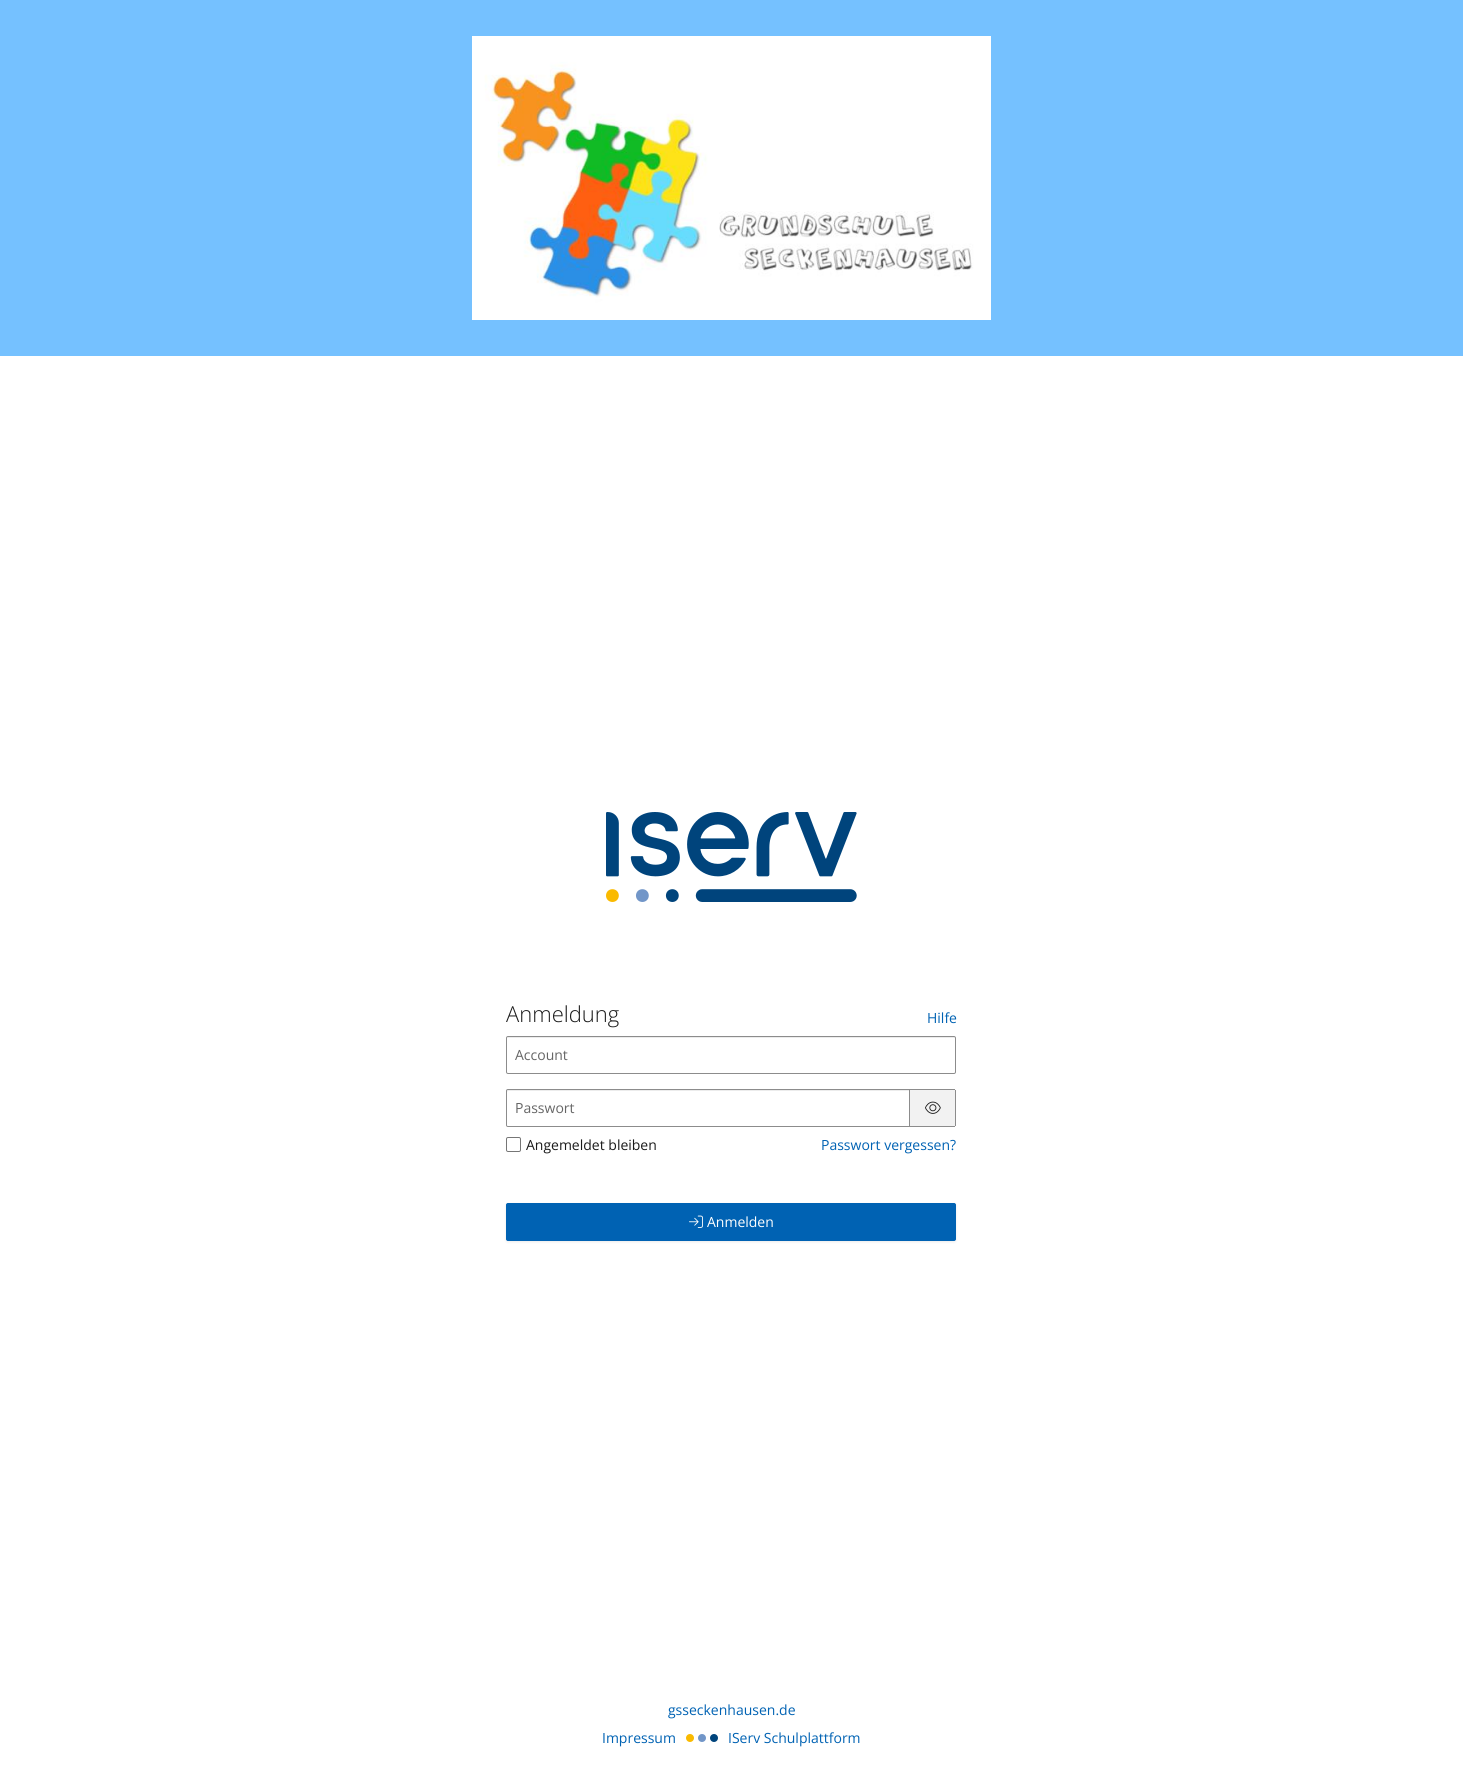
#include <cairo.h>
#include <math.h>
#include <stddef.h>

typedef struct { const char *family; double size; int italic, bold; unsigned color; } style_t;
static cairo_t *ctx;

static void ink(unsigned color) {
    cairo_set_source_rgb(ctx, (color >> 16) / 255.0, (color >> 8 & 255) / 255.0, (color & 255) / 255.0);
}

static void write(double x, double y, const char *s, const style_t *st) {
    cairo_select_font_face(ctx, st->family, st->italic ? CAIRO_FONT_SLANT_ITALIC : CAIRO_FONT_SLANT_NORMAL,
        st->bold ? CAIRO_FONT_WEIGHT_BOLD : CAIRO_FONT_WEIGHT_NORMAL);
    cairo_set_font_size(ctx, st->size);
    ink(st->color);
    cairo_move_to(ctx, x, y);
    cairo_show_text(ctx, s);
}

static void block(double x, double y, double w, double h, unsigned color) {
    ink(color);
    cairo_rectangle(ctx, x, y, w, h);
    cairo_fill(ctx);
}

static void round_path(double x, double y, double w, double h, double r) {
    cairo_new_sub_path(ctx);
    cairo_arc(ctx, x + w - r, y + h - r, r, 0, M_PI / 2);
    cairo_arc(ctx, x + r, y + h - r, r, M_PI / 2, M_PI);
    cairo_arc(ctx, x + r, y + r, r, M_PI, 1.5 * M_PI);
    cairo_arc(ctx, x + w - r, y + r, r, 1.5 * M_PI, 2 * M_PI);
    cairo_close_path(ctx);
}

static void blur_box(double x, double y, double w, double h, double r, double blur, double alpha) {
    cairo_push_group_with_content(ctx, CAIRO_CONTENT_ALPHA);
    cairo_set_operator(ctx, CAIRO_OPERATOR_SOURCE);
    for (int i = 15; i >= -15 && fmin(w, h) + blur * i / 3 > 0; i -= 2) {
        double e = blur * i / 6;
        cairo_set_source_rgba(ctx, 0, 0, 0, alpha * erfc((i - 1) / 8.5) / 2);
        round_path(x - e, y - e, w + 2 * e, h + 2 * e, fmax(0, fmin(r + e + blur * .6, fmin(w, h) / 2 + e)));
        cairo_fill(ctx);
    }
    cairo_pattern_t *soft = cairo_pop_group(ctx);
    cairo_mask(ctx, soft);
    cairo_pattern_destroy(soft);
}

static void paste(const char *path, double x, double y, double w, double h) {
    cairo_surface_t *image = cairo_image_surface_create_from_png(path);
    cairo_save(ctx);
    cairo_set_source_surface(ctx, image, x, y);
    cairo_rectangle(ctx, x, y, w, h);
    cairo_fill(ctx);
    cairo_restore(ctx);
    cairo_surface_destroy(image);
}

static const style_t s1 = {"Open Sans Light", 22, 0, 0, 0x1a1a1a};
static const style_t s2 = {"Open Sans", 14, 0, 0, 0x0062b3};
static const style_t s3 = {"Open Sans", 14, 0, 0, 0x666666};
static const style_t s4 = {"Open Sans", 14, 0, 0, 0x1a1a1a};
static const style_t s5 = {"Open Sans", 14, 0, 0, 0xffffff};

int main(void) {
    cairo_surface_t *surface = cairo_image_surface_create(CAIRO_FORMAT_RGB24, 1463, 1780);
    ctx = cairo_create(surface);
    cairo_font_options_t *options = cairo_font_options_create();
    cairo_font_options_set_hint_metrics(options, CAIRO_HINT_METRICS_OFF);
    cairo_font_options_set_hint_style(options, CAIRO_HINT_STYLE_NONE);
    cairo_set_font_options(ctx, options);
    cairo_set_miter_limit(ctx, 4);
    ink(0xffffff);
    cairo_paint(ctx);
    block(0, 0, 1463, 356, 0x75c1ff);
    paste("pic1.png", 472, 36, 519, 284);
    paste("pic2.png", 606, 812, 251, 90);
    write(506, 1022, "Anmeldung", &s1);
    write(927, 1023, "Hilfe", &s2);
    ink(0xececec);
    cairo_new_path(ctx);
    cairo_move_to(ctx, 508, 1038);
    cairo_line_to(ctx, 954, 1038);
    cairo_curve_to(ctx, 955, 1038, 955, 1038, 955, 1039);
    cairo_curve_to(ctx, 955, 1038, 955, 1037, 954, 1037);
    cairo_line_to(ctx, 508, 1037);
    cairo_line_to(ctx, 507, 1038);
    cairo_line_to(ctx, 507, 1039);
    cairo_curve_to(ctx, 507, 1038, 507, 1038, 508, 1038);
    cairo_close_path(ctx);
    cairo_fill(ctx);
    round_path(506.5, 1036.5, 449, 37, 1.5);
    ink(0x8c8c8c);
    cairo_set_line_width(ctx, 1);
    cairo_stroke(ctx);
    write(515, 1060, "Account", &s3);
    ink(0xececec);
    cairo_new_path(ctx);
    cairo_move_to(ctx, 508, 1091);
    cairo_line_to(ctx, 909, 1091);
    cairo_line_to(ctx, 909, 1090);
    cairo_line_to(ctx, 508, 1090);
    cairo_curve_to(ctx, 507, 1090, 507, 1091, 507, 1092);
    cairo_close_path(ctx);
    cairo_fill(ctx);
    cairo_new_path(ctx);
    cairo_move_to(ctx, 508, 1089.5);
    cairo_line_to(ctx, 909.5, 1089.5);
    cairo_line_to(ctx, 909.5, 1126.5);
    cairo_line_to(ctx, 508, 1126.5);
    cairo_curve_to(ctx, 507, 1126.5, 506.5, 1126, 506.5, 1125);
    cairo_line_to(ctx, 506.5, 1091);
    cairo_curve_to(ctx, 506.5, 1090, 507, 1089.5, 508, 1089.5);
    cairo_close_path(ctx);
    ink(0x8c8c8c);
    cairo_stroke(ctx);
    write(515, 1113, "Passwort", &s3);
    ink(0xf2f2f2);
    cairo_new_path(ctx);
    cairo_move_to(ctx, 910, 1089);
    cairo_line_to(ctx, 954, 1089);
    cairo_curve_to(ctx, 955, 1089, 956, 1090, 956, 1091);
    cairo_line_to(ctx, 956, 1125);
    cairo_curve_to(ctx, 956, 1126, 955, 1127, 954, 1127);
    cairo_line_to(ctx, 910, 1127);
    cairo_close_path(ctx);
    cairo_fill(ctx);
    block(910, 1089, 45, 1, 0x8c8c8c);
    block(955, 1090, 1, 36, 0x8c8c8c);
    block(910, 1126, 45, 1, 0x8c8c8c);
    paste("pic3.png", 925, 1101, 16, 13);
    round_path(506.5, 1137.5, 14, 14, 1.5);
    ink(0x767676);
    cairo_stroke(ctx);
    write(526, 1150, "Angemeldet bleiben", &s4);
    write(821, 1150, "Passwort vergessen?", &s2);
    ink(0x000000);
    blur_box(506, 1204, 450, 38, 2, 1.5, 0.08);
    ink(0x0062b3);
    round_path(506.5, 1203.5, 449, 37, 1.5);
    cairo_fill_preserve(ctx);
    cairo_stroke(ctx);
    paste("pic4.png", 689, 1215, 14, 13);
    write(707, 1227, "Anmelden", &s5);
    write(668, 1715, "gsseckenhausen.de", &s2);
    write(602, 1743, "Impressum", &s2);
    paste("pic5.png", 686, 1734, 8, 8);
    paste("pic6.png", 698, 1734, 8, 8);
    paste("pic7.png", 710, 1734, 8, 8);
    write(728, 1743, "IServ Schulplattform", &s2);
    cairo_surface_write_to_png(surface, "screenshot.png");
    cairo_font_options_destroy(options);
    cairo_destroy(ctx);
    cairo_surface_destroy(surface);
    return 0;
}
